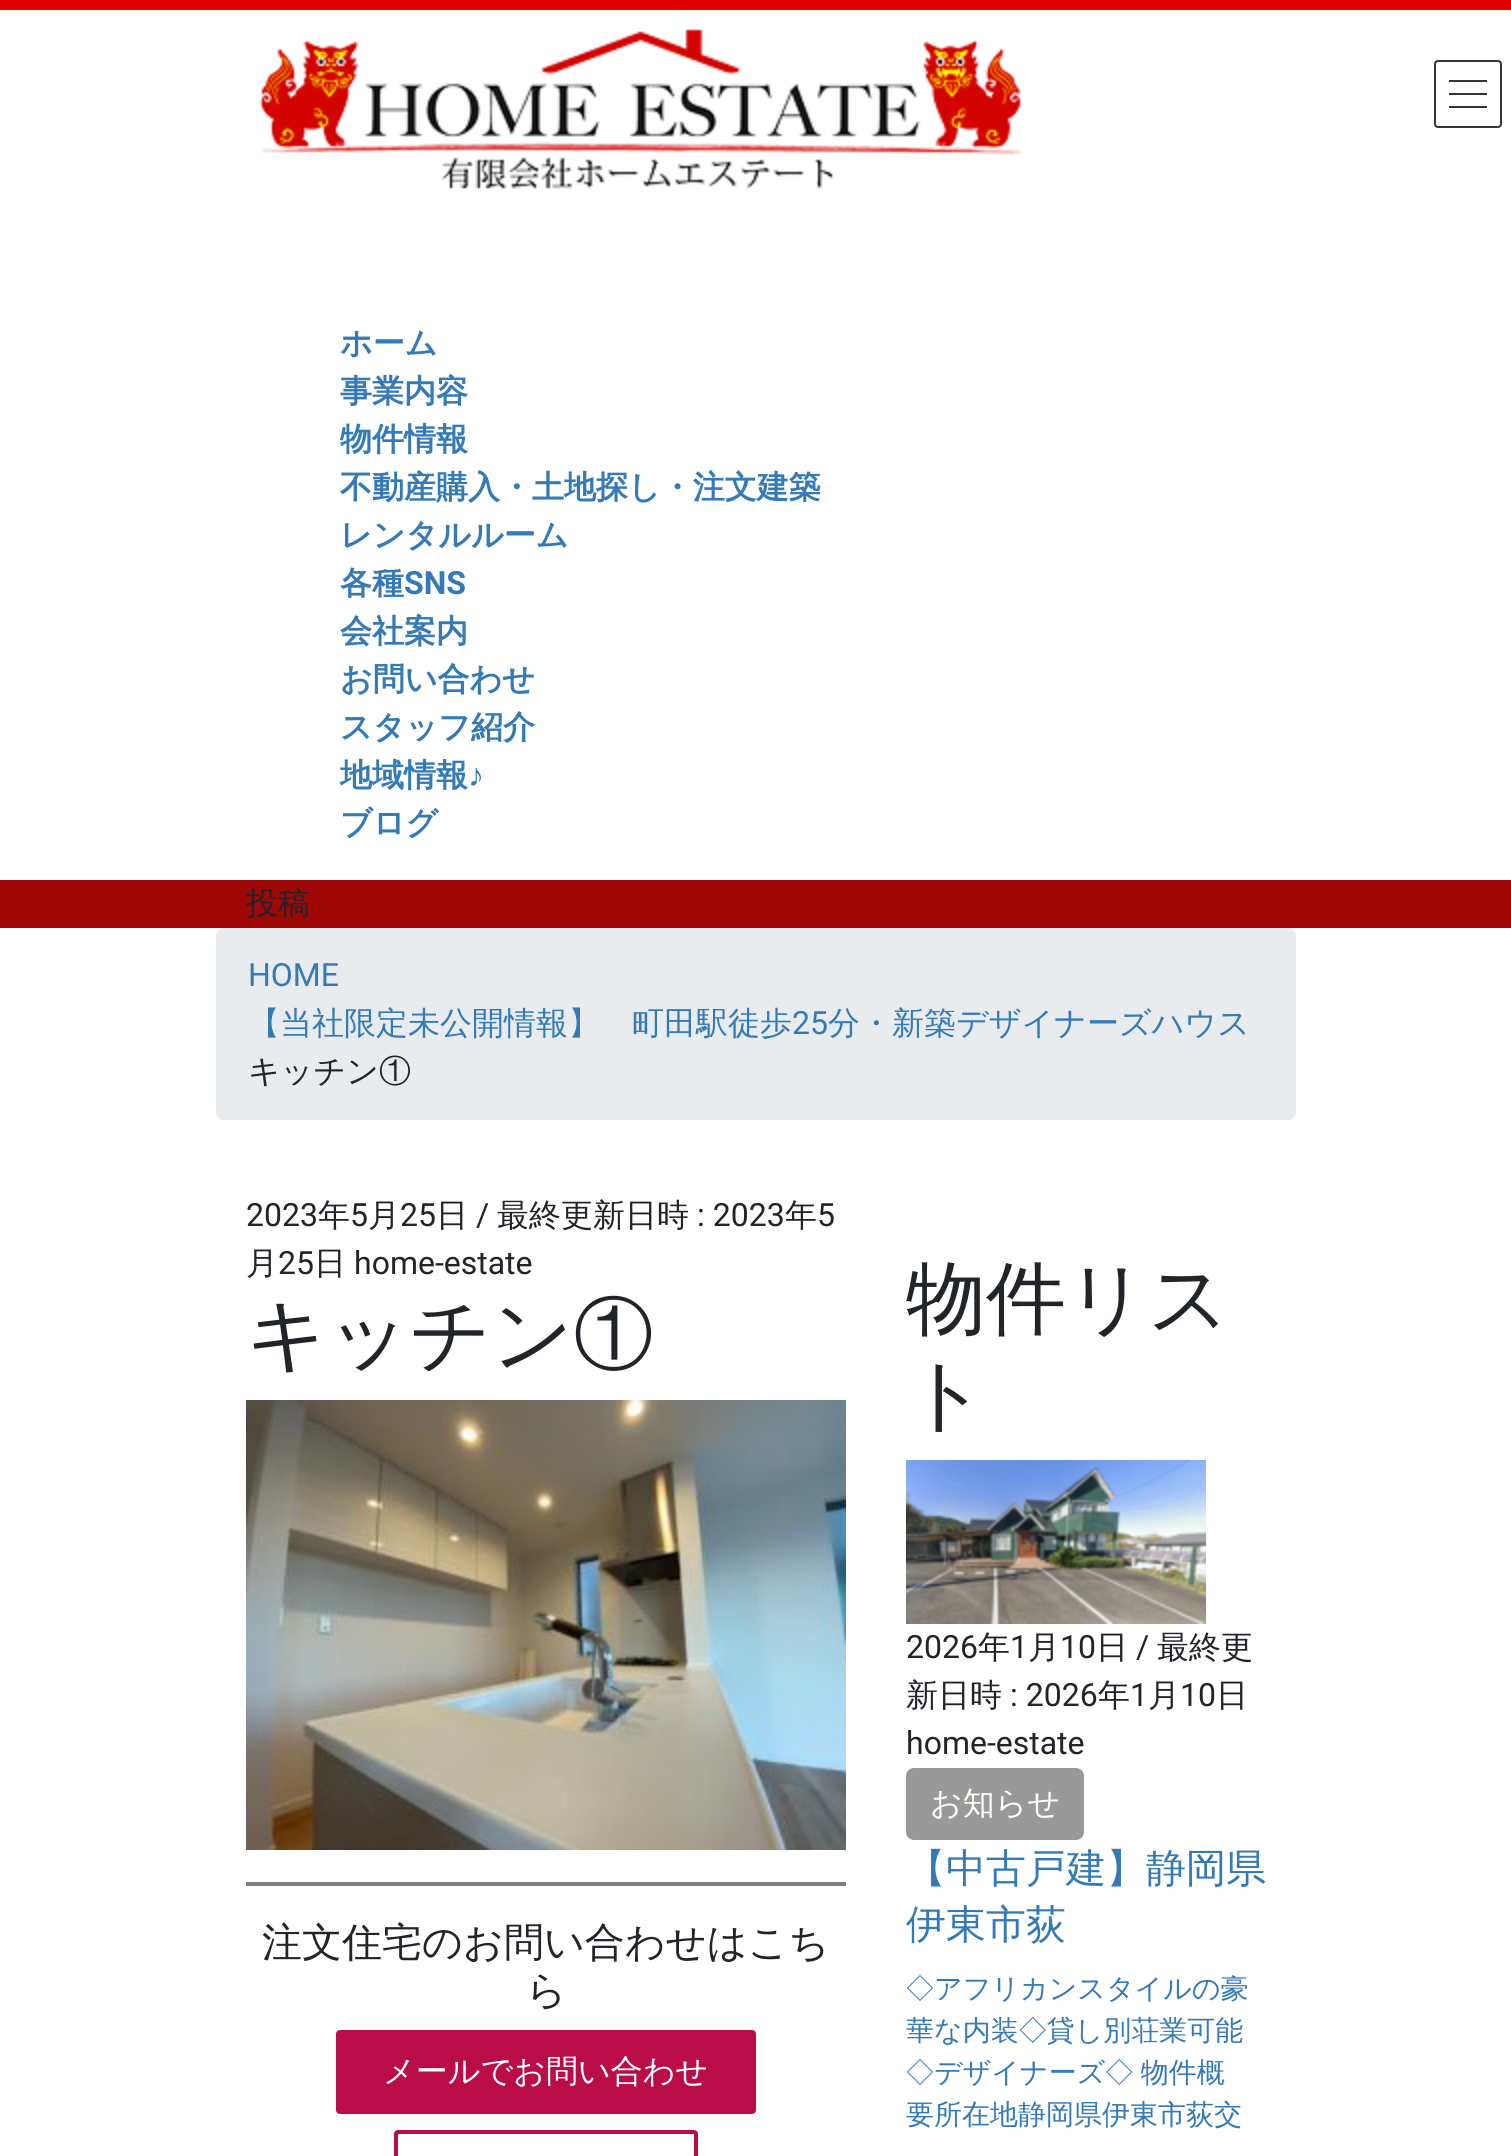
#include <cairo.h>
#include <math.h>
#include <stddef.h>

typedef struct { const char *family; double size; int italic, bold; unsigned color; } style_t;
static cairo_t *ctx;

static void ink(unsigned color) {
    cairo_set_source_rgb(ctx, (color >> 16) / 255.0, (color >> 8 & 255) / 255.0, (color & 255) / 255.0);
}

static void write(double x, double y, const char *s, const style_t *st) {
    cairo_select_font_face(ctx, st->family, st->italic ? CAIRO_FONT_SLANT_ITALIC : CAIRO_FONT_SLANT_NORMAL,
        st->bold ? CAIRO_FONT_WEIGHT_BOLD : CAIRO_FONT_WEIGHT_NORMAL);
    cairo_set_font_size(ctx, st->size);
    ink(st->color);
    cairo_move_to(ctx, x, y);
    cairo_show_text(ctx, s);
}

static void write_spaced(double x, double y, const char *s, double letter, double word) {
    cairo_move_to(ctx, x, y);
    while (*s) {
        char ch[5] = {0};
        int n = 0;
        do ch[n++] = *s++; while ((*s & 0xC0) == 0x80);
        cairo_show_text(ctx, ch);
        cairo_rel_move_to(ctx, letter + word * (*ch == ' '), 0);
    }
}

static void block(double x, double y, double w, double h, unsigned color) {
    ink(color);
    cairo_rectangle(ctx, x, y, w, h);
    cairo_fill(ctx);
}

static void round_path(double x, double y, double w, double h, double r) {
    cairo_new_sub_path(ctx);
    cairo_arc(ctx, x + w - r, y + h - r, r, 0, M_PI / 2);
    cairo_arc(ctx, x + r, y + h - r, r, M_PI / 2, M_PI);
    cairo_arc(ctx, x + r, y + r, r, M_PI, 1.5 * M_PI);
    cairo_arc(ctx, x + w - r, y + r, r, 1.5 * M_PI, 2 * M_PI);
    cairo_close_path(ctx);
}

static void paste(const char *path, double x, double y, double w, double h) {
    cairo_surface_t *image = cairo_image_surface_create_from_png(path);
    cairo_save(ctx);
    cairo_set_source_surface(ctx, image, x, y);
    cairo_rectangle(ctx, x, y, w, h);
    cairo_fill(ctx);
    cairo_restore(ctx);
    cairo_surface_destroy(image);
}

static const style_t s1 = {"WenQuanYi Zen Hei", 32, 0, 1, 0x337ab7};
static const style_t s2 = {"Roboto", 32, 0, 1, 0x337ab7};
static const style_t s3 = {"Liberation Sans", 32, 0, 1, 0x337ab7};
static const style_t s4 = {"WenQuanYi Zen Hei Medium", 32, 0, 0, 0x212529};
static const style_t s5 = {"Roboto", 32, 0, 0, 0x337ab7};
static const style_t s6 = {"WenQuanYi Zen Hei Medium", 32, 0, 0, 0x337ab7};
static const style_t s7 = {"Roboto", 32, 0, 0, 0x212529};
static const style_t s8 = {"WenQuanYi Zen Hei Medium", 80, 0, 0, 0x212529};
static const style_t s9 = {"WenQuanYi Zen Hei Medium", 40, 0, 0, 0x212529};
static const style_t s10 = {"WenQuanYi Zen Hei Medium", 32, 0, 0, 0xfffffa};
static const style_t s11 = {"WenQuanYi Zen Hei Medium", 40, 0, 0, 0x337ab7};
static const style_t s12 = {"WenQuanYi Zen Hei Medium", 28, 0, 0, 0x337ab7};

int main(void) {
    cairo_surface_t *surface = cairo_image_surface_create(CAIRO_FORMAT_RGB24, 1511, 2156);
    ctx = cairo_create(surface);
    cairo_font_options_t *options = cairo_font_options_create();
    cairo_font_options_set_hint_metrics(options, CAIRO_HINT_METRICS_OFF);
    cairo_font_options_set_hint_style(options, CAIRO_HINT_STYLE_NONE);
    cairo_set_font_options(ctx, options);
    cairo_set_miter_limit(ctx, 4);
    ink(0xffffff);
    cairo_paint(ctx);
    block(1449, 80, 38, 2, 0x333333);
    block(1449, 93, 38, 2, 0x333333);
    block(1449, 106, 38, 2, 0x333333);
    round_path(1435, 61, 66, 66, 3);
    cairo_stroke(ctx);
    block(0, 0, 1511, 10, 0xdf0000);
    paste("pic1.png", 259, 28, 763, 162);
    write(340, 354, "ホーム", &s1);
    write(340, 402, "事業内容", &s1);
    write(340, 450, "物件情報", &s1);
    write(340, 498, "不動産購入・土地探し・注文建築", &s1);
    write(340, 546, "レンタルルーム", &s1);
    write(340, 594, "各種", &s1);
    write(404, 594, "SNS", &s2);
    write(340, 642, "会社案内", &s1);
    write(340, 690, "お問い合わせ", &s1);
    write(340, 738, "スタッフ紹介", &s1);
    write(340, 786, "地域情報", &s1);
    write(468, 786, "♪", &s3);
    write(340, 834, "ブログ", &s1);
    block(0, 880, 1511, 48, 0x9f0606);
    write(246, 914, "投稿", &s4);
    ink(0xe9ecef);
    round_path(216, 928, 1080, 192, 8);
    cairo_fill(ctx);
    write(248, 986, "HOME", &s5);
    write(248, 1034, "【当社限定未公開情報】　町田駅徒歩", &s6);
    write(792, 1034, "25", &s5);
    write(828, 1034, "分・新築デザイナーズハウス", &s6);
    write(248, 1082, "キッチン①", &s4);
    write(246, 1226, "2023", &s7);
    write(318, 1226, "年", &s4);
    write(350, 1226, "5", &s7);
    write(368, 1226, "月", &s4);
    write(400, 1226, "25", &s7);
    write(436, 1226, "日", &s4);
    write(476, 1226, "/", &s7);
    write(497, 1226, "最終更新日時", &s4);
    write(697, 1226, ": 2023", &s7);
    write(785, 1226, "年", &s4);
    write(817, 1226, "5", &s7);
    write(246, 1274, "月", &s4);
    write(278, 1274, "25", &s7);
    write(314, 1274, "日", &s4);
    write(354, 1274, "home-estate", &s7);
    write(246, 1362, "キッチン①", &s8);
    paste("pic2.png", 246, 1400, 600, 450);
    block(246, 1882, 600, 4, 0x808080);
    write(262, 1956, "注文住宅のお問い合わせはこち", &s9);
    write(526, 2004, "ら", &s9);
    ink(0xba0c49);
    round_path(336, 2030, 420, 84, 4);
    cairo_fill(ctx);
    write(383, 2082, "メールでお問い合わせ", &s10);
    round_path(396, 2132, 300, 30, 2);
    ink(0xba0c49);
    cairo_set_line_width(ctx, 4);
    cairo_stroke(ctx);
    write(906, 1326, "物件リス", &s8);
    write(906, 1422, "ト", &s8);
    paste("pic3.png", 906, 1460, 300, 164);
    write(906, 1658, "2026", &s7);
    write(978, 1658, "年", &s4);
    write(1010, 1658, "1", &s7);
    write(1028, 1658, "月", &s4);
    write(1060, 1658, "10", &s7);
    write(1096, 1658, "日", &s4);
    write(1136, 1658, "/", &s7);
    write(1157, 1658, "最終更", &s4);
    write(906, 1706, "新日時", &s4);
    write(1010, 1706, ": 2026", &s7);
    write(1098, 1706, "年", &s4);
    write(1130, 1706, "1", &s7);
    write(1148, 1706, "月", &s4);
    write(1180, 1706, "10", &s7);
    write(1216, 1706, "日", &s4);
    write(906, 1754, "home-estate", &s7);
    ink(0x999999);
    round_path(906, 1768, 178, 72, 8);
    cairo_fill(ctx);
    write(930, 1814, "お知らせ", &s10);
    write(906, 1882, "【中古戸建】静岡県", &s11);
    write(906, 1938, "伊東市荻", &s11);
    write(906, 1998, "◇アフリカンスタイルの豪", &s12);
    write(906, 2040, "華な内装◇貸し別荘業可能", &s12);
    write_spaced(906, 2082, "◇デザイナーズ◇ 物件概", 0, -1);
    write(906, 2124, "要所在地静岡県伊東市荻交", &s12);
    cairo_surface_write_to_png(surface, "screenshot.png");
    cairo_font_options_destroy(options);
    cairo_destroy(ctx);
    cairo_surface_destroy(surface);
    return 0;
}
